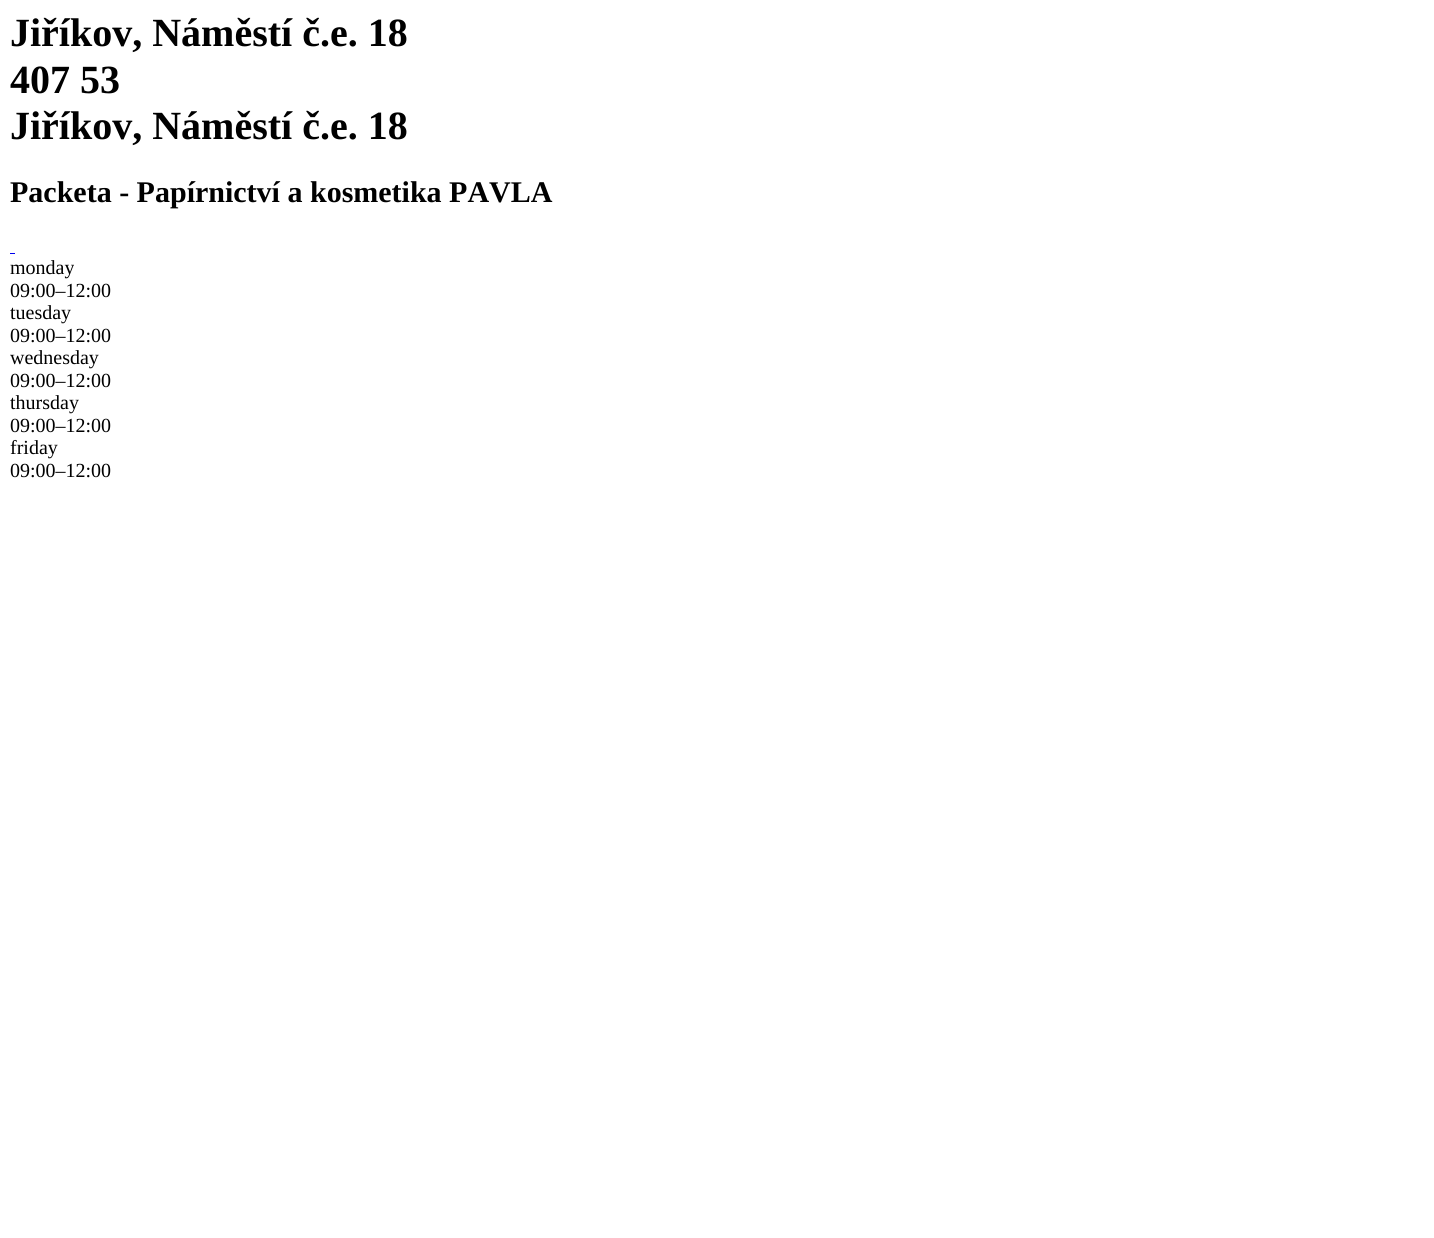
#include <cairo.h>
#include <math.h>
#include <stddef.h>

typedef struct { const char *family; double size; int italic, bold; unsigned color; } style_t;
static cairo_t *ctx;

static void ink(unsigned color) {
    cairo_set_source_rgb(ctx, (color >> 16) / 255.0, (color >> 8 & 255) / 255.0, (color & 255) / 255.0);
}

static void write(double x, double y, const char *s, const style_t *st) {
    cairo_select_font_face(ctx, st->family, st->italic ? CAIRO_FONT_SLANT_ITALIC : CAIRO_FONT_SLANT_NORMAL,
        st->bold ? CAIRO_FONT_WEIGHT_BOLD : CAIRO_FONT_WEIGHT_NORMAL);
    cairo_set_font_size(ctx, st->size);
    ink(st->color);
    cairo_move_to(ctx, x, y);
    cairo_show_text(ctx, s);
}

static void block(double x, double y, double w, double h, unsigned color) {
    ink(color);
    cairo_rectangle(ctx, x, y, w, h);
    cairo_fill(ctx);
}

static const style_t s1 = {"Liberation Serif", 40, 0, 1, 0x000000};
static const style_t s2 = {"Liberation Serif", 30, 0, 1, 0x000000};
static const style_t s3 = {"Liberation Serif", 20, 0, 0, 0x000000};

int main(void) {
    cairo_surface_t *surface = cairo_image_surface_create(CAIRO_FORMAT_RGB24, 1434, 1238);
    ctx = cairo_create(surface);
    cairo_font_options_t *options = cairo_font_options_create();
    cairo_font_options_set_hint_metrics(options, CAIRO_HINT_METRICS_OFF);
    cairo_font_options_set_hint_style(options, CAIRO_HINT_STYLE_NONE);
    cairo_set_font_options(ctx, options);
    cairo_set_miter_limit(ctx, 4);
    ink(0xffffff);
    cairo_paint(ctx);
    write(10, 46, "Jiříkov, Náměstí č.e. 18", &s1);
    write(10, 93, "407 53", &s1);
    write(10, 139, "Jiříkov, Náměstí č.e. 18", &s1);
    write(10, 202, "Packeta - Papírnictví a kosmetika PAVLA", &s2);
    block(10, 253, 5, 1, 0x0000ee);
    write(10, 274, "monday", &s3);
    write(10, 297, "09:00–12:00", &s3);
    write(10, 319, "tuesday", &s3);
    write(10, 342, "09:00–12:00", &s3);
    write(10, 364, "wednesday", &s3);
    write(10, 387, "09:00–12:00", &s3);
    write(10, 409, "thursday", &s3);
    write(10, 432, "09:00–12:00", &s3);
    write(10, 454, "friday", &s3);
    write(10, 477, "09:00–12:00", &s3);
    cairo_surface_write_to_png(surface, "screenshot.png");
    cairo_font_options_destroy(options);
    cairo_destroy(ctx);
    cairo_surface_destroy(surface);
    return 0;
}
